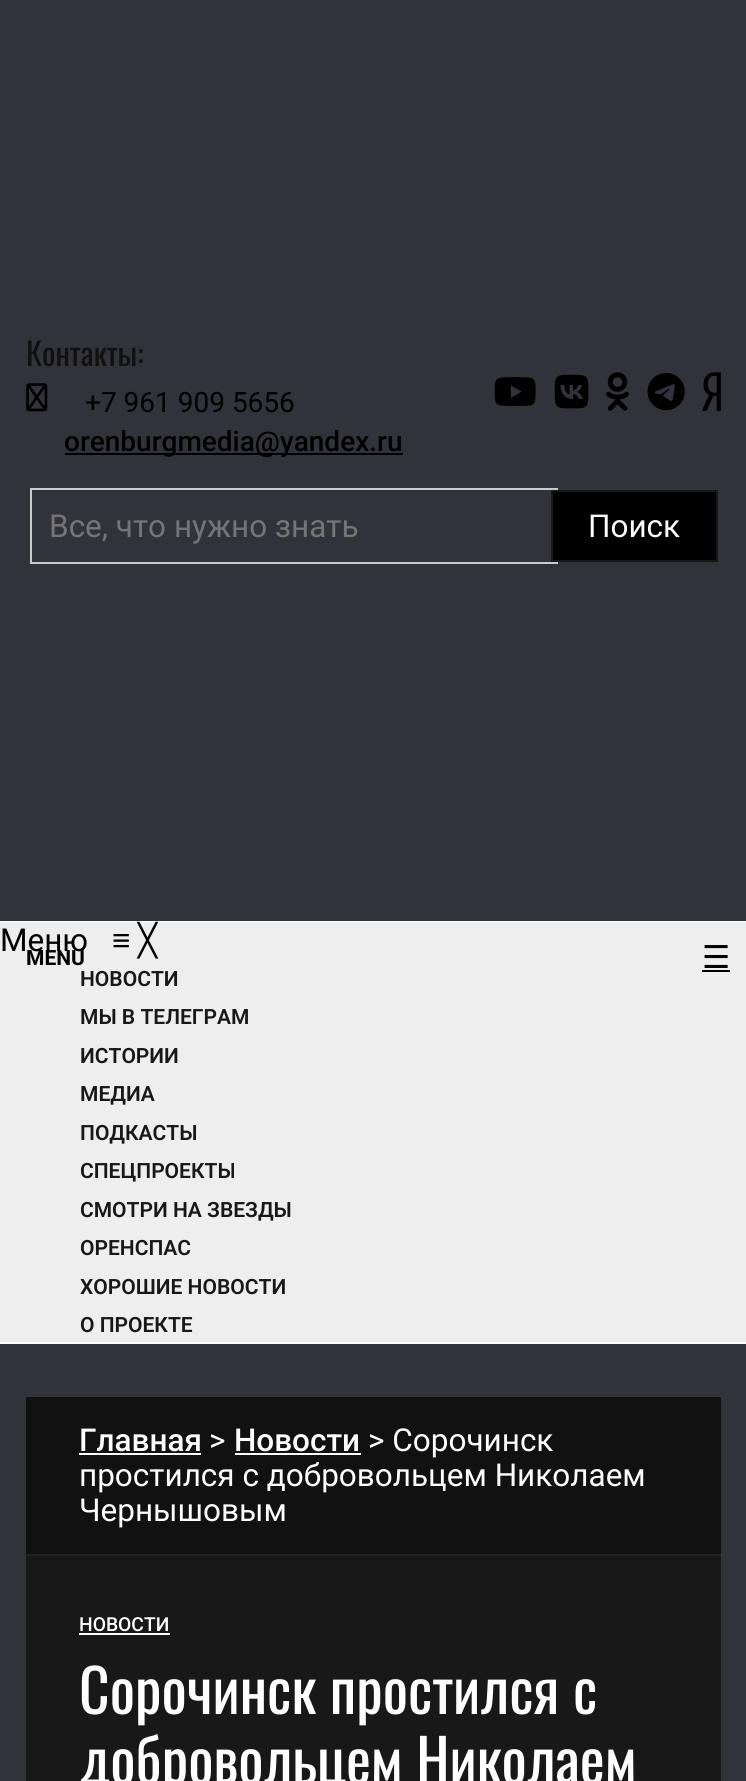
#include <cairo.h>
#include <math.h>
#include <stddef.h>

typedef struct { const char *family; double size; int italic, bold; unsigned color; } style_t;
static cairo_t *ctx;

static void ink(unsigned color) {
    cairo_set_source_rgb(ctx, (color >> 16) / 255.0, (color >> 8 & 255) / 255.0, (color & 255) / 255.0);
}

static void write(double x, double y, const char *s, const style_t *st) {
    cairo_select_font_face(ctx, st->family, st->italic ? CAIRO_FONT_SLANT_ITALIC : CAIRO_FONT_SLANT_NORMAL,
        st->bold ? CAIRO_FONT_WEIGHT_BOLD : CAIRO_FONT_WEIGHT_NORMAL);
    cairo_set_font_size(ctx, st->size);
    ink(st->color);
    cairo_move_to(ctx, x, y);
    cairo_show_text(ctx, s);
}

static void block(double x, double y, double w, double h, unsigned color) {
    ink(color);
    cairo_rectangle(ctx, x, y, w, h);
    cairo_fill(ctx);
}

static void paste(const char *path, double x, double y, double w, double h) {
    cairo_surface_t *image = cairo_image_surface_create_from_png(path);
    cairo_save(ctx);
    cairo_set_source_surface(ctx, image, x, y);
    cairo_rectangle(ctx, x, y, w, h);
    cairo_fill(ctx);
    cairo_restore(ctx);
    cairo_surface_destroy(image);
}

static const style_t s1 = {"Oswald", 31.5, 0, 0, 0x111111};
static const style_t s2 = {"Roboto", 28, 0, 0, 0x000000};
static const style_t s3 = {"Roboto Medium", 28, 0, 0, 0x000000};
static const style_t s4 = {"Roboto", 31.5, 0, 0, 0x757575};
static const style_t s5 = {"Roboto", 31.5, 0, 0, 0xffffff};
static const style_t s6 = {"Roboto", 31.5, 0, 0, 0x000000};
static const style_t s7 = {"Liberation Sans", 31.5, 0, 0, 0x000000};
static const style_t s8 = {"DejaVu Sans", 31.5, 0, 0, 0x000000};
static const style_t s9 = {"Roboto SemiBold", 21, 0, 0, 0x181818};
static const style_t s10 = {"Roboto", 21, 0, 1, 0x000000};
static const style_t s11 = {"Roboto Medium", 31.5, 0, 0, 0xffffff};
static const style_t s12 = {"Roboto Medium", 19.25, 0, 0, 0xffffff};
static const style_t s13 = {"Oswald", 59.5, 0, 0, 0xffffff};

int main(void) {
    cairo_surface_t *surface = cairo_image_surface_create(CAIRO_FORMAT_RGB24, 746, 1781);
    ctx = cairo_create(surface);
    cairo_font_options_t *options = cairo_font_options_create();
    cairo_font_options_set_hint_metrics(options, CAIRO_HINT_METRICS_OFF);
    cairo_font_options_set_hint_style(options, CAIRO_HINT_STYLE_NONE);
    cairo_set_font_options(ctx, options);
    cairo_set_miter_limit(ctx, 4);
    ink(0x32323a);
    cairo_paint(ctx);
    write(26, 366, "Контакты:", &s1);
    paste("pic1.png", 26, 383, 22, 29);
    write(85, 412, "+7 961 909 5656", &s2);
    block(65, 453, 338, 2, 0x000000);
    write(64, 451, "orenburgmedia@yandex.ru", &s3);
    paste("pic2.png", 494, 377, 42, 29);
    paste("pic3.png", 554, 374, 35, 35);
    paste("pic4.png", 606, 372, 24, 39);
    paste("pic5.png", 647, 373, 38, 38);
    paste("pic6.png", 702, 372, 19, 39);
    cairo_rectangle(ctx, 31, 489, 526, 74);
    ink(0xcccccc);
    cairo_stroke(ctx);
    write(49, 537, "Все, что нужно знать", &s4);
    ink(0x000000);
    cairo_rectangle(ctx, 552, 491, 165, 70);
    cairo_fill_preserve(ctx);
    ink(0x181818);
    cairo_stroke(ctx);
    write(588, 537, "Поиск", &s5);
    block(0, 921, 746, 1, 0xffffff);
    block(0, 1342, 746, 2, 0xffffff);
    block(0, 922, 746, 420, 0xeeeeee);
    write(0, 951, "Меню", &s6);
    write(112, 951, "≡", &s7);
    write(138, 951, "╳", &s8);
    write(80, 986, "НОВОСТИ", &s9);
    write(80, 1024, "МЫ В ТЕЛЕГРАМ", &s9);
    write(80, 1063, "ИСТОРИИ", &s9);
    write(80, 1101, "МЕДИА", &s9);
    write(80, 1140, "ПОДКАСТЫ", &s9);
    write(80, 1178, "СПЕЦПРОЕКТЫ", &s9);
    write(80, 1217, "СМОТРИ НА ЗВЕЗДЫ", &s9);
    write(80, 1255, "ОРЕНСПАС", &s9);
    write(80, 1294, "ХОРОШИЕ НОВОСТИ", &s9);
    write(80, 1332, "О ПРОЕКТЕ", &s9);
    write(702, 968, "☰", &s8);
    block(702, 970, 28, 2, 0x000000);
    write(26, 965, "MENU", &s10);
    block(26, 1554, 695, 2, 0x222222);
    block(26, 1397, 695, 157, 0x111111);
    write(79, 1451, "Главная", &s11);
    block(79, 1453, 122, 2, 0xffffff);
    write(209, 1451, ">", &s5);
    write(234, 1451, "Новости", &s11);
    block(235, 1453, 126, 2, 0xffffff);
    write(368, 1451, "> Сорочинск", &s5);
    write(79, 1486, "простился с добровольцем Николаем", &s5);
    write(79, 1521, "Чернышовым", &s5);
    block(26, 1556, 695, 225, 0x181818);
    write(79, 1631, "НОВОСТИ", &s12);
    block(79, 1633, 91, 2, 0xffffff);
    write(79, 1714, "Сорочинск простился с", &s13);
    write(79, 1784, "добровольцем Николаем", &s13);
    cairo_surface_write_to_png(surface, "screenshot.png");
    cairo_font_options_destroy(options);
    cairo_destroy(ctx);
    cairo_surface_destroy(surface);
    return 0;
}
